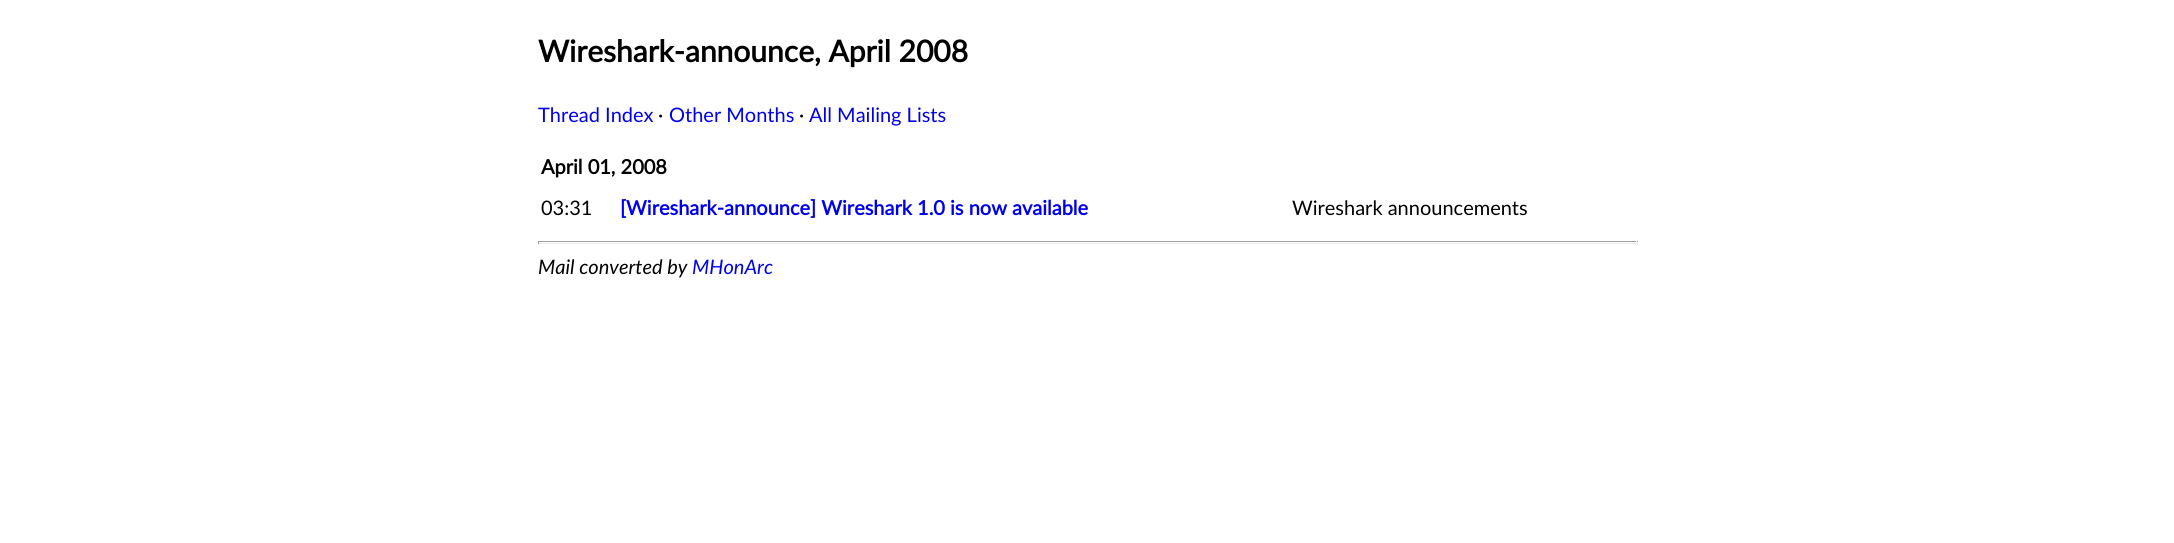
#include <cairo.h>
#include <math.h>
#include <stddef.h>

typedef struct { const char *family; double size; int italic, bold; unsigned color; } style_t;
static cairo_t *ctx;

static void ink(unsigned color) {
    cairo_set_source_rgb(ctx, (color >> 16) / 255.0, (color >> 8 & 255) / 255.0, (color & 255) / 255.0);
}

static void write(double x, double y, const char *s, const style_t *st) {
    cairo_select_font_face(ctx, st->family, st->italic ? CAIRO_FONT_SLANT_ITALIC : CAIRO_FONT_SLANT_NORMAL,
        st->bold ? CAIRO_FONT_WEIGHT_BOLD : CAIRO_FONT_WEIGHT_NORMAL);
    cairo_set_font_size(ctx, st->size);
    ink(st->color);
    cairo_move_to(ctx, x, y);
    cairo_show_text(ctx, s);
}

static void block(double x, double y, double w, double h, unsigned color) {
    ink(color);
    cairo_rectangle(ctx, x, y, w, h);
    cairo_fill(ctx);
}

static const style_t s1 = {"Lato", 30, 0, 1, 0x000000};
static const style_t s2 = {"Lato", 20, 0, 0, 0x0000ee};
static const style_t s3 = {"Lato", 20, 0, 0, 0x000000};
static const style_t s4 = {"Lato", 20, 0, 1, 0x000000};
static const style_t s5 = {"Lato", 20, 0, 1, 0x0000ee};
static const style_t s6 = {"Lato", 20, 1, 0, 0x000000};
static const style_t s7 = {"Lato", 20, 1, 0, 0x0000ee};

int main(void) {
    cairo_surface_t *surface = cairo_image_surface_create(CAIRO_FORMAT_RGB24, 2174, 543);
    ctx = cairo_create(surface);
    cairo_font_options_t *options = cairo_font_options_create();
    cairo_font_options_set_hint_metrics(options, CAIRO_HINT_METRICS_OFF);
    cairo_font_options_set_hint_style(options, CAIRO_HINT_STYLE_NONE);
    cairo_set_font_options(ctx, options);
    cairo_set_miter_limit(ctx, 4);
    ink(0xffffff);
    cairo_paint(ctx);
    write(538, 62, "Wireshark-announce, April 2008", &s1);
    write(538, 122, "Thread Index", &s2);
    write(658, 122, "·", &s3);
    write(669, 122, "Other Months", &s2);
    write(799, 122, "·", &s3);
    write(809, 122, "All Mailing Lists", &s2);
    write(541, 174, "April 01, 2008", &s4);
    write(541, 215, "03:31", &s3);
    write(620, 215, "[Wireshark-announce] Wireshark 1.0 is now available", &s5);
    write(1292, 215, "Wireshark announcements", &s3);
    block(538, 241, 1100, 1, 0x9f9f9f);
    block(1636, 241, 1, 3, 0xeeeeee);
    block(538, 243, 1100, 1, 0xeeeeee);
    block(538, 241, 1, 3, 0x9f9f9f);
    write(538, 274, "Mail converted by", &s6);
    write(692, 274, "MHonArc", &s7);
    cairo_surface_write_to_png(surface, "screenshot.png");
    cairo_font_options_destroy(options);
    cairo_destroy(ctx);
    cairo_surface_destroy(surface);
    return 0;
}
